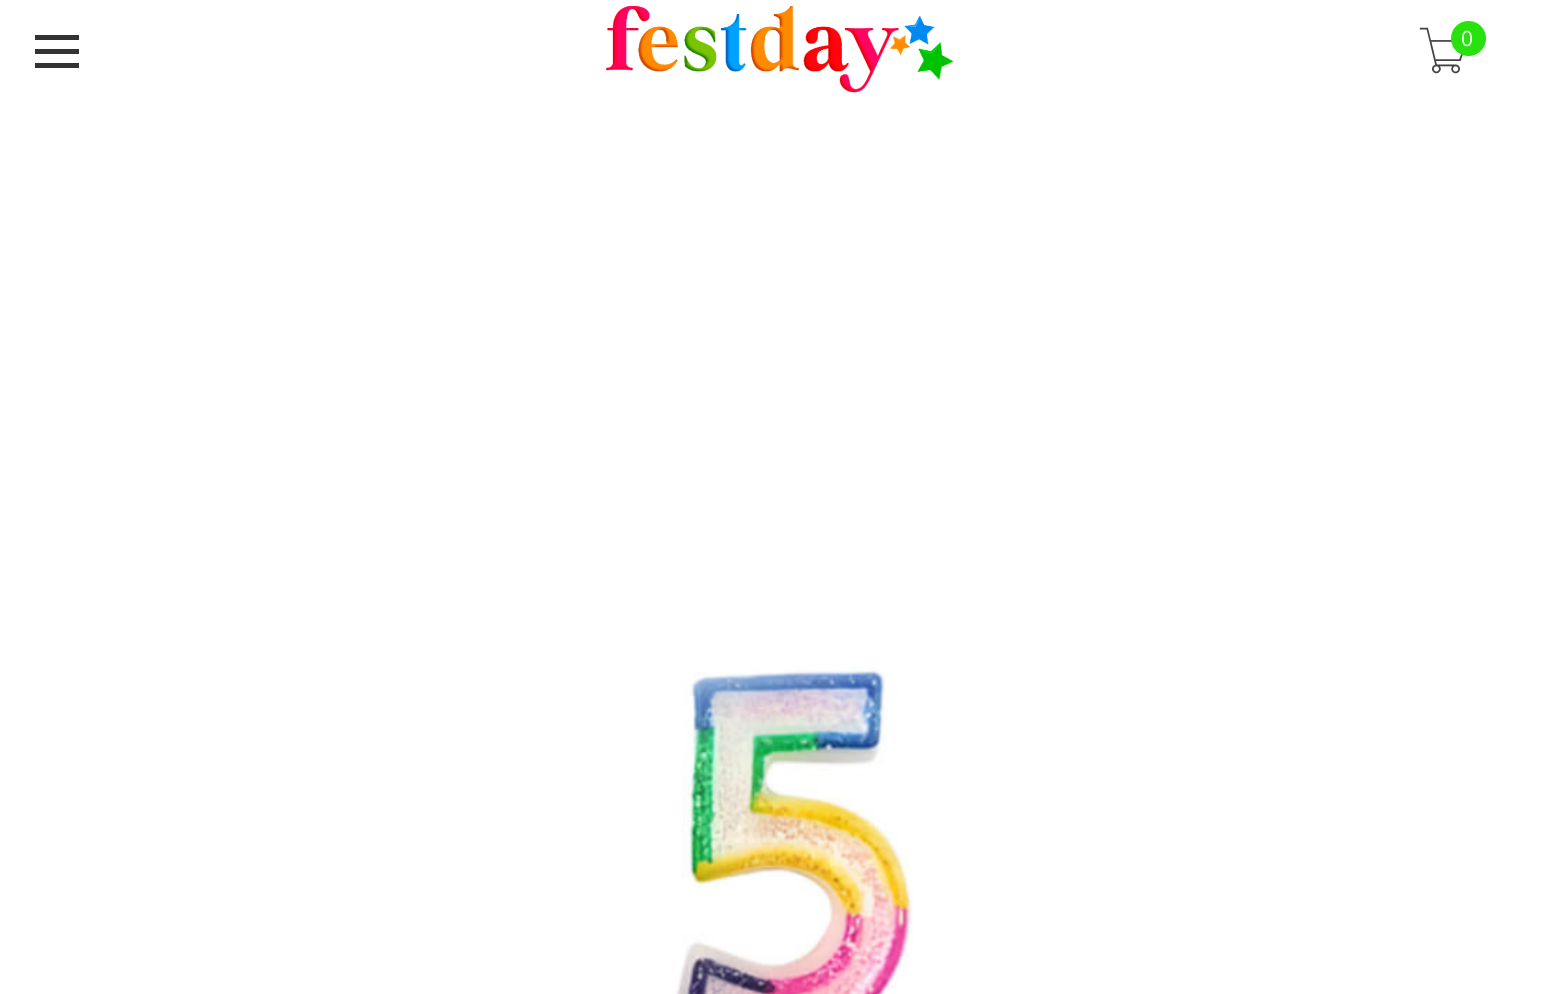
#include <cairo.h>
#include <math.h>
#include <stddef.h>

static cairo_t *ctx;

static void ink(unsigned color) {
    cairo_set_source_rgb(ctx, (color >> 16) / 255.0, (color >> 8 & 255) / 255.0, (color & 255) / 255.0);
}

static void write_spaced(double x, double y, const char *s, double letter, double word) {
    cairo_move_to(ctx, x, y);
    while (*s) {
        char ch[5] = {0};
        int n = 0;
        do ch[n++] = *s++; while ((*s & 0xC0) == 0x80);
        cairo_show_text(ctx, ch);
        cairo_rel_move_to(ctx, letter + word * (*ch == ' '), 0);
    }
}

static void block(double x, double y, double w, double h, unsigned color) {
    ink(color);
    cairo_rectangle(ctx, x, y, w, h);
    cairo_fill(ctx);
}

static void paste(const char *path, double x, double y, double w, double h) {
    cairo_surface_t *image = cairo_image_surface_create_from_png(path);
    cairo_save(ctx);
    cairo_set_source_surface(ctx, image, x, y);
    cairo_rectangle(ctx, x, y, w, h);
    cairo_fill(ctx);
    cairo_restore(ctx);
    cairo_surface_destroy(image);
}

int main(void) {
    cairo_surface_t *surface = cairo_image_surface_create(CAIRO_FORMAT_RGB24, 1559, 994);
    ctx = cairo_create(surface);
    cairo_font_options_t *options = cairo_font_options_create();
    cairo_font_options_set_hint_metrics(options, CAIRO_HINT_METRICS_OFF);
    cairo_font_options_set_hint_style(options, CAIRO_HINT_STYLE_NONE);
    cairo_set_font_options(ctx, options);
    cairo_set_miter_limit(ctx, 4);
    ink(0xffffff);
    cairo_paint(ctx);
    block(35, 35, 44, 5, 0x333333);
    block(35, 49, 44, 5, 0x333333);
    block(35, 63, 44, 5, 0x333333);
    paste("pic1.png", 606, 6, 348, 87);
    paste("pic2.png", 1419, 27, 44, 47);
    ink(0x27e20d);
    cairo_arc(ctx, 1468.5, 38.5, 17.5, 0, 2 * M_PI);
    cairo_fill(ctx);
    cairo_select_font_face(ctx, "Open Sans", CAIRO_FONT_SLANT_NORMAL, CAIRO_FONT_WEIGHT_NORMAL);
    cairo_set_font_size(ctx, 21);
    ink(0xffffff);
    write_spaced(1461, 46, "0", 2, 0);
    paste("pic3.png", 671, 666, 243, 328);
    cairo_surface_write_to_png(surface, "screenshot.png");
    cairo_font_options_destroy(options);
    cairo_destroy(ctx);
    cairo_surface_destroy(surface);
    return 0;
}
